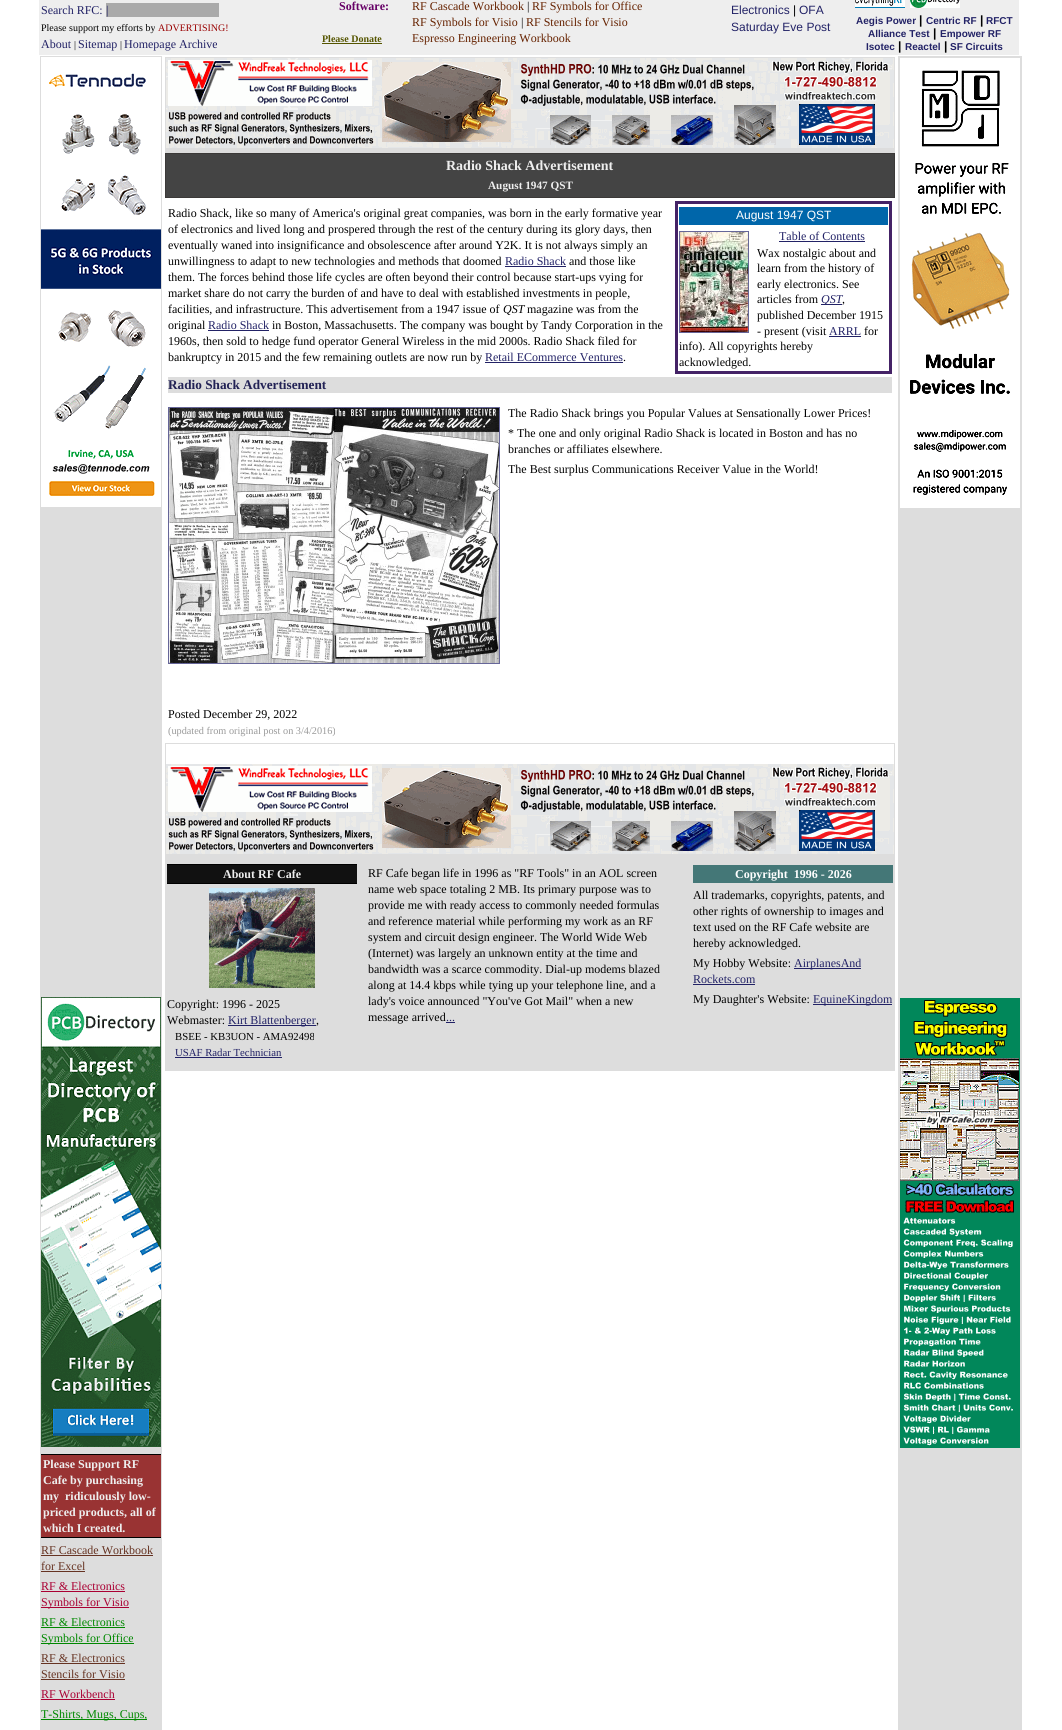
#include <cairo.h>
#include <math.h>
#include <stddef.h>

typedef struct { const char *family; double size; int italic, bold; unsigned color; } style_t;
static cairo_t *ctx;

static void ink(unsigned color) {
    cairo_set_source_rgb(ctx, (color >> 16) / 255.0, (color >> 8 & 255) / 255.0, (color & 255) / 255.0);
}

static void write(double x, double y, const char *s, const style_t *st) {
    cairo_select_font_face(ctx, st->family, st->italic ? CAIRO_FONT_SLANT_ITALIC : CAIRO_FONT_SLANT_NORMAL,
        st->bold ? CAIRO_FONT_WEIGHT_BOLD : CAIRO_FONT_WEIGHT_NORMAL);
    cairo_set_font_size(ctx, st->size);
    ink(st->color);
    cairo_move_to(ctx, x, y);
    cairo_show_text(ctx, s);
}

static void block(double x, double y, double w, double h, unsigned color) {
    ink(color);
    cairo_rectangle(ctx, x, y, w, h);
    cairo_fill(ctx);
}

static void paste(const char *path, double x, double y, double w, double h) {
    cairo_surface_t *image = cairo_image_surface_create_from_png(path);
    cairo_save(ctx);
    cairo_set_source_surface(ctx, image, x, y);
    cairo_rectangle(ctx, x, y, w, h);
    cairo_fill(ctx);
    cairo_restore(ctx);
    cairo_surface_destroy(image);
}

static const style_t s1 = {"Liberation Serif", 12, 0, 0, 0x222266};
static const style_t s2 = {"Liberation Serif", 10, 0, 0, 0x000000};
static const style_t s3 = {"Liberation Serif", 10, 0, 0, 0x990000};
static const style_t s4 = {"Liberation Serif", 12, 0, 1, 0x660066};
static const style_t s5 = {"Liberation Serif", 10, 0, 1, 0x555500};
static const style_t s6 = {"Liberation Serif", 12, 0, 0, 0x662200};
static const style_t s7 = {"Liberation Serif", 12, 0, 0, 0x000000};
static const style_t s8 = {"Liberation Sans", 12, 0, 0, 0x222266};
static const style_t s9 = {"Liberation Sans", 12, 0, 0, 0x000000};
static const style_t s10 = {"Liberation Sans", 10, 0, 1, 0x222266};
static const style_t s11 = {"Liberation Sans", 12, 0, 1, 0x000000};
static const style_t s12 = {"Liberation Serif", 14, 0, 1, 0xeeeeee};
static const style_t s13 = {"Liberation Serif", 11.25, 0, 1, 0xeeeeee};
static const style_t s14 = {"Liberation Serif", 12, 1, 0, 0x000000};
static const style_t s15 = {"Liberation Sans", 12, 0, 0, 0xffffff};
static const style_t s16 = {"Liberation Serif", 12, 1, 0, 0x222266};
static const style_t s17 = {"Liberation Serif", 13.25, 0, 1, 0x222255};
static const style_t s18 = {"Liberation Serif", 10.25, 0, 0, 0x999999};
static const style_t s19 = {"Liberation Serif", 12, 0, 1, 0xeeeeee};
static const style_t s20 = {"Liberation Serif", 10.75, 0, 0, 0x000000};
static const style_t s21 = {"Liberation Serif", 10.75, 0, 0, 0x222266};
static const style_t s22 = {"Liberation Serif", 12, 0, 1, 0xffffff};
static const style_t s23 = {"Liberation Serif", 12, 0, 0, 0x663322};
static const style_t s24 = {"Liberation Serif", 12, 0, 0, 0xaa0033};
static const style_t s25 = {"Liberation Serif", 12, 0, 0, 0x008800};

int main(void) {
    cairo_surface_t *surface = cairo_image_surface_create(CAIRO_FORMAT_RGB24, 1062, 1730);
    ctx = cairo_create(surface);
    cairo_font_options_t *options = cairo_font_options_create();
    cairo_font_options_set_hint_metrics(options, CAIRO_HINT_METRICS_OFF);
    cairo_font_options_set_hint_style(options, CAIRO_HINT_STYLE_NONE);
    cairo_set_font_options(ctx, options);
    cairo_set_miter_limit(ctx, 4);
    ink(0xffffff);
    cairo_paint(ctx);
    block(39, 0, 980, 55, 0xeeeeee);
    write(41, 14, "Search RFC:", &s1);
    block(106, 3, 113, 14, 0xaaaaaa);
    write(106, 14, "|", &s1);
    write(41, 31, "Please support my efforts by", &s2);
    write(158, 31, "ADVERTISING!", &s3);
    write(41, 48, "About", &s1);
    write(74, 48, "|", &s2);
    write(78, 48, "Sitemap", &s1);
    write(120, 48, "|", &s2);
    write(124, 48, "Homepage Archive", &s1);
    write(339, 10, "Software:", &s4);
    write(322, 42, "Please Donate", &s5);
    block(322, 43, 60, 1, 0x555500);
    write(412, 10, "RF Cascade Workbook", &s6);
    write(527, 10, "|", &s7);
    write(532, 10, "RF Symbols for Office", &s6);
    write(412, 26, "RF Symbols for Visio", &s6);
    write(521, 26, "|", &s7);
    write(526, 26, "RF Stencils for Visio", &s6);
    write(412, 42, "Espresso Engineering Workbook", &s6);
    write(731, 14, "Electronics", &s8);
    write(793, 14, "|", &s9);
    write(799, 14, "OFA", &s8);
    write(731, 31, "Saturday Eve Post", &s8);
    paste("pic1.png", 855, 0, 105, 9);
    write(856, 24, "Aegis Power", &s10);
    write(919, 24, "|", &s11);
    write(926, 24, "Centric RF", &s10);
    write(980, 24, "|", &s11);
    write(986, 24, "RFCT", &s10);
    write(868, 37, "Alliance Test", &s10);
    write(933, 37, "|", &s11);
    write(940, 37, "Empower RF", &s10);
    write(866, 50, "Isotec", &s10);
    write(898, 50, "|", &s11);
    write(905, 50, "Reactel", &s10);
    write(944, 50, "|", &s11);
    write(950, 50, "SF Circuits", &s10);
    block(165, 57, 730, 96, 0xdddddd);
    paste("pic2.png", 166, 58, 728, 90);
    block(165, 153, 730, 45, 0x3b3938);
    block(166, 154, 728, 43, 0x444444);
    write(446, 170, "Radio Shack Advertisement", &s12);
    write(488, 189, "August 1947 QST", &s13);
    write(168, 217, "Radio Shack, like so many of America's original great companies, was born in the early formative year", &s7);
    write(168, 233, "of electronics and lived long and prospered through the rest of the century during its glory days, then", &s7);
    write(168, 249, "eventually waned into insignificance and obsolescence after around Y2K. It is not always simply an", &s7);
    write(168, 265, "unwillingness to adapt to new technologies and methods that doomed", &s7);
    write(505, 265, "Radio Shack", &s1);
    block(505, 266, 61, 1, 0x222266);
    write(569, 265, "and those like", &s7);
    write(168, 281, "them. The forces behind those life cycles are often beyond their control because start-ups vying for", &s7);
    write(168, 297, "market share do not carry the burden of and have to deal with established investments in people,", &s7);
    write(168, 313, "facilities, and infrastructure. This advertisement from a 1947 issue of", &s7);
    write(503, 313, "QST", &s14);
    write(527, 313, "magazine was from the", &s7);
    write(168, 329, "original", &s7);
    write(208, 329, "Radio Shack", &s1);
    block(208, 330, 61, 1, 0x222266);
    write(272, 329, "in Boston, Massachusetts. The company was bought by Tandy Corporation in the", &s7);
    write(168, 345, "1960s, then sold to hedge fund operator General Wireless in the mid 2000s. Radio Shack filed for", &s7);
    write(168, 361, "bankruptcy in 2015 and the few remaining outlets are now run by", &s7);
    write(485, 361, "Retail ECommerce Ventures", &s1);
    block(485, 362, 138, 1, 0x222266);
    write(623, 361, ".", &s7);
    block(675, 201, 217, 3, 0x442266);
    block(889, 201, 3, 173, 0x442266);
    block(675, 371, 217, 3, 0x442266);
    block(675, 201, 3, 173, 0x442266);
    block(679, 207, 209, 18, 0x0066aa);
    write(736, 219, "August 1947 QST", &s15);
    cairo_rectangle(ctx, 679.5, 231.5, 69, 101);
    ink(0x666699);
    cairo_set_line_width(ctx, 1);
    cairo_stroke(ctx);
    paste("pic3.png", 680, 232, 68, 100);
    write(779, 240, "Table of Contents", &s1);
    block(779, 241, 86, 1, 0x222266);
    write(757, 257, "Wax nostalgic about and", &s7);
    write(757, 272, "learn from the history of", &s7);
    write(757, 288, "early electronics. See", &s7);
    write(757, 303, "articles from", &s7);
    block(821, 304, 21, 1, 0x222266);
    write(821, 303, "QST", &s16);
    write(842, 303, ",", &s7);
    write(757, 319, "published December 1915", &s7);
    write(757, 335, "- present (visit", &s7);
    write(829, 335, "ARRL", &s1);
    block(829, 336, 32, 1, 0x222266);
    write(864, 335, "for", &s7);
    write(679, 350, "info). All copyrights hereby", &s7);
    write(679, 366, "acknowledged.", &s7);
    block(168, 377, 724, 16, 0xdddddd);
    write(168, 389, "Radio Shack Advertisement", &s17);
    cairo_rectangle(ctx, 168.5, 407.5, 331, 256);
    ink(0x666699);
    cairo_stroke(ctx);
    paste("pic4.png", 169, 408, 330, 255);
    write(508, 417, "The Radio Shack brings you Popular Values at Sensationally Lower Prices!", &s7);
    write(508, 437, "* The one and only original Radio Shack is located in Boston and has no", &s7);
    write(508, 453, "branches or affiliates elsewhere.", &s7);
    write(508, 473, "The Best surplus Communications Receiver Value in the World!", &s7);
    write(168, 718, "Posted December 29, 2022", &s7);
    write(168, 734, "(updated from original post on 3/4/2016)", &s18);
    block(165, 743, 730, 328, 0xdddddd);
    block(166, 744, 728, 20, 0xffffff);
    paste("pic2.png", 166, 764, 728, 90);
    block(167, 865, 190, 18, 0x111111);
    block(167, 864, 190, 1, 0x000000);
    block(167, 883, 190, 1, 0x000000);
    write(223, 878, "About RF Cafe", &s19);
    paste("pic5.png", 209, 888, 106, 100);
    write(167, 1008, "Copyright: 1996 - 2025", &s7);
    write(167, 1024, "Webmaster:", &s7);
    block(228, 1025, 88, 1, 0x222266);
    write(228, 1024, "Kirt Blattenberger", &s1);
    write(316, 1024, ",", &s7);
    write(175, 1040, "BSEE - KB3UON - AMA92498", &s20);
    write(175, 1056, "USAF Radar Technician", &s21);
    block(175, 1057, 107, 1, 0x222266);
    write(368, 877, "RF Cafe began life in 1996 as \"RF Tools\" in an AOL screen", &s7);
    write(368, 893, "name web space totaling 2 MB. Its primary purpose was to", &s7);
    write(368, 909, "provide me with ready access to commonly needed formulas", &s7);
    write(368, 925, "and reference material while performing my work as an RF", &s7);
    write(368, 941, "system and circuit design engineer. The World Wide Web", &s7);
    write(368, 957, "(Internet) was largely an unknown entity at the time and", &s7);
    write(368, 973, "bandwidth was a scarce commodity. Dial-up modems blazed", &s7);
    write(368, 989, "along at 14.4 kbps while tying up your telephone line, and a", &s7);
    write(368, 1005, "lady's voice announced \"You've Got Mail\" when a new", &s7);
    write(368, 1021, "message arrived", &s7);
    write(446, 1021, "...", &s1);
    block(446, 1022, 9, 1, 0x222266);
    block(693, 865, 200, 18, 0x447777);
    write(735, 878, "Copyright  1996 - 2026", &s22);
    write(693, 899, "All trademarks, copyrights, patents, and", &s7);
    write(693, 915, "other rights of ownership to images and", &s7);
    write(693, 931, "text used on the RF Cafe website are", &s7);
    write(693, 947, "hereby acknowledged.", &s7);
    write(693, 967, "My Hobby Website:", &s7);
    block(794, 968, 67, 1, 0x222266);
    write(794, 967, "AirplanesAnd", &s1);
    write(693, 983, "Rockets.com", &s1);
    block(693, 984, 62, 1, 0x222266);
    write(693, 1003, "My Daughter's Website:", &s7);
    block(813, 1004, 79, 1, 0x222266);
    write(813, 1003, "EquineKingdom", &s1);
    block(898, 56, 124, 1674, 0xdddddd);
    paste("pic6.png", 900, 58, 120, 450);
    paste("pic7.png", 900, 998, 120, 450);
    block(40, 56, 122, 1674, 0xdddddd);
    paste("pic8.png", 41, 57, 120, 450);
    paste("pic9.png", 41, 997, 120, 450);
    block(41, 1455, 120, 82, 0x993333);
    block(41, 1454, 120, 1, 0x000000);
    block(41, 1537, 120, 1, 0x000000);
    write(43, 1468, "Please Support RF", &s19);
    write(43, 1484, "Cafe by purchasing", &s19);
    write(43, 1500, "my  ridiculously low-", &s19);
    write(43, 1516, "priced products, all of", &s19);
    write(43, 1532, "which I created.", &s19);
    write(41, 1554, "RF Cascade Workbook", &s23);
    block(41, 1555, 112, 1, 0x663322);
    write(41, 1570, "for Excel", &s23);
    block(41, 1571, 44, 1, 0x663322);
    write(41, 1590, "RF & Electronics", &s24);
    block(41, 1591, 84, 1, 0xaa0033);
    block(41, 1607, 88, 1, 0xaa0033);
    write(41, 1606, "Symbols for Visio", &s24);
    write(41, 1626, "RF & Electronics", &s25);
    block(41, 1627, 84, 1, 0x008800);
    block(41, 1643, 93, 1, 0x008800);
    write(41, 1642, "Symbols for Office", &s25);
    write(41, 1662, "RF & Electronics", &s23);
    block(41, 1663, 84, 1, 0x663322);
    write(41, 1678, "Stencils for Visio", &s23);
    block(41, 1679, 84, 1, 0x663322);
    write(41, 1698, "RF Workbench", &s24);
    block(41, 1699, 74, 1, 0xaa0033);
    block(41, 1719, 106, 1, 0x008800);
    write(41, 1718, "T-Shirts, Mugs, Cups,", &s25);
    cairo_surface_write_to_png(surface, "screenshot.png");
    cairo_font_options_destroy(options);
    cairo_destroy(ctx);
    cairo_surface_destroy(surface);
    return 0;
}
